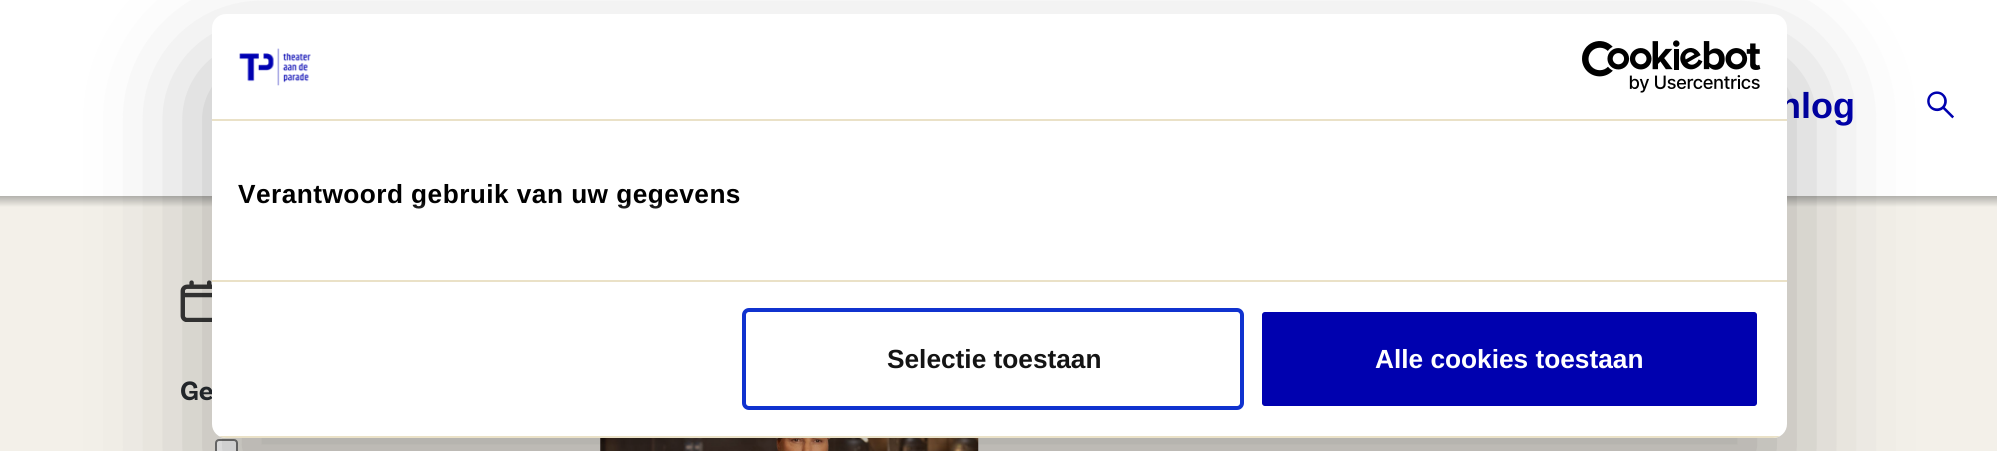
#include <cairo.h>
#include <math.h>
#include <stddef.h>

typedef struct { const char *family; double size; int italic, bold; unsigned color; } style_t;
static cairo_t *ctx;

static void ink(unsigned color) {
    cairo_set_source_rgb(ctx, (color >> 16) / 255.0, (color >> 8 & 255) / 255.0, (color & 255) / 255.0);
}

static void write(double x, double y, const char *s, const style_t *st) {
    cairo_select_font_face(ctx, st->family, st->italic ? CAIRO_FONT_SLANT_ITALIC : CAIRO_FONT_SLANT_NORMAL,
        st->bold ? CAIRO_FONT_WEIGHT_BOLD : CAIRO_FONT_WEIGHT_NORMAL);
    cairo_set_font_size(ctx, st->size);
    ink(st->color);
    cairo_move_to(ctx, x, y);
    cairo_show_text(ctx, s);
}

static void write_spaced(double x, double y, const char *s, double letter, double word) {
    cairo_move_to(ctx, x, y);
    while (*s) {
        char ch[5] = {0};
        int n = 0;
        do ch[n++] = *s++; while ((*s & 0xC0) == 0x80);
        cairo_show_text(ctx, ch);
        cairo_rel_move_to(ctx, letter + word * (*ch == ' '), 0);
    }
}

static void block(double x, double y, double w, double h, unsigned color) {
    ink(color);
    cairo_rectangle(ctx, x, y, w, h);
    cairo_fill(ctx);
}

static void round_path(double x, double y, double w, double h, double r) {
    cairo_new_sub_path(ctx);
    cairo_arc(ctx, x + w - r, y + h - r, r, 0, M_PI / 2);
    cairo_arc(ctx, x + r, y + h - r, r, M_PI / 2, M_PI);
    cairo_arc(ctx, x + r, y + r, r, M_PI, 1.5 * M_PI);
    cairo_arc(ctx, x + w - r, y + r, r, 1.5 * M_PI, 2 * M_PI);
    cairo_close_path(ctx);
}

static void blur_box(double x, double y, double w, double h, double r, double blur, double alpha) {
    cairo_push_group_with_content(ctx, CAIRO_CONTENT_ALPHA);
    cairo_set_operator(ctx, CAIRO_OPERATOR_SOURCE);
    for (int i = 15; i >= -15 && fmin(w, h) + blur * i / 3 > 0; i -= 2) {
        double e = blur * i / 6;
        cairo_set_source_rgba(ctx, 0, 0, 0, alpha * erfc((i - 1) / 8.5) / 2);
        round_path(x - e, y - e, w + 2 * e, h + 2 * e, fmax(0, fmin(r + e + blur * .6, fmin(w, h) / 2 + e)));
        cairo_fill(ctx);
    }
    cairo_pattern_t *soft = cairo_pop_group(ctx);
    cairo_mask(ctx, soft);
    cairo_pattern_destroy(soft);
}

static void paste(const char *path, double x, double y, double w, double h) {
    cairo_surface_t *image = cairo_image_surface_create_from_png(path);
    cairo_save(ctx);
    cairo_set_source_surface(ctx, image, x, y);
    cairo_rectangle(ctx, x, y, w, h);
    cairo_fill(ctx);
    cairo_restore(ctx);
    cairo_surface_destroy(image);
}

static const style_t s1 = {"Liberation Sans", 36, 0, 1, 0x0001af};
static const style_t s2 = {"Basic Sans", 28, 0, 1, 0x212529};
static const style_t s3 = {"Liberation Sans", 26.25, 0, 1, 0x141414};
static const style_t s4 = {"Liberation Sans", 26.25, 0, 1, 0xffffff};

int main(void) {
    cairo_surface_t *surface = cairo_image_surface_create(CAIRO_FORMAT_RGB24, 1997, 451);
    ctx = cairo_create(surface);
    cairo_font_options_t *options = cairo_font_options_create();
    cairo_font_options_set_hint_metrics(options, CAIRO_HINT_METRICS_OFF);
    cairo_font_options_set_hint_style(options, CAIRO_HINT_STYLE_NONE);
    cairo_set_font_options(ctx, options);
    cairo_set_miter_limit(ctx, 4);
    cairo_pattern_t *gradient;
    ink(0xf3f0e9);
    cairo_paint(ctx);
    block(0, 0, 1997, 196, 0xffffff);
    write(1779, 118, "nlog", &s1);
    paste("pic1.png", 1927, 91, 27, 28);
    gradient = cairo_pattern_create_linear(999, 207, 999, 196);
    cairo_pattern_add_color_stop_rgba(gradient, 0, 0.953, 0.941, 0.914, 1);
    cairo_pattern_add_color_stop_rgba(gradient, 1, 0.702, 0.698, 0.678, 1);
    cairo_set_source(ctx, gradient);
    cairo_pattern_destroy(gradient);
    cairo_rectangle(ctx, 0, 196, 1997, 11);
    cairo_fill(ctx);
    paste("pic4.png", 180, 280, 32, 42);
    ink(0xffffff);
    round_path(216, 440, 21, 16, 3);
    cairo_fill_preserve(ctx);
    ink(0x767676);
    cairo_stroke(ctx);
    paste("pic5.png", 600, 438, 379, 13);
    ink(0x000000);
    blur_box(212, 70, 1575, 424, 14, 59.5, 0.3);
    write(180, 400, "Ge", &s2);
    ink(0xffffff);
    round_path(212, 14, 1575, 424, 14);
    cairo_fill(ctx);
    block(212, 119, 1575, 2, 0xeae1c7);
    paste("pic2.png", 239, 48, 72, 38);
    paste("pic3.png", 1582, 40, 179, 53);
    block(212, 280, 1575, 2, 0xeae1c7);
    cairo_select_font_face(ctx, "Liberation Sans", CAIRO_FONT_SLANT_NORMAL, CAIRO_FONT_WEIGHT_BOLD);
    cairo_set_font_size(ctx, 26.25);
    ink(0x000000);
    write_spaced(238, 203, "Verantwoord gebruik van uw gegevens", 0.45, 0);
    gradient = cairo_pattern_create_linear(988, 280, 988, 201);
    cairo_pattern_add_color_stop_rgba(gradient, 0, 1, 1, 1, 1);
    cairo_pattern_add_color_stop_rgba(gradient, 0.5, 1, 1, 1, 0.8);
    cairo_pattern_add_color_stop_rgba(gradient, 1, 1, 1, 1, 0);
    cairo_set_source(ctx, gradient);
    cairo_pattern_destroy(gradient);
    cairo_rectangle(ctx, 244, 202, 493, 7);
    cairo_fill(ctx);
    cairo_save(ctx);
    round_path(212, 14, 1575, 424, 14);
    cairo_clip(ctx);
    block(212, 436, 1575, 2, 0xeae1c7);
    cairo_restore(ctx);
    round_path(744, 310, 498, 98, 5);
    ink(0x1032cf);
    cairo_set_line_width(ctx, 4);
    cairo_stroke(ctx);
    write(887, 368, "Selectie toestaan", &s3);
    ink(0x0001af);
    round_path(1260, 310, 499, 98, 5);
    cairo_fill_preserve(ctx);
    ink(0xffffff);
    cairo_stroke(ctx);
    write(1375, 368, "Alle cookies toestaan", &s4);
    cairo_surface_write_to_png(surface, "screenshot.png");
    cairo_font_options_destroy(options);
    cairo_destroy(ctx);
    cairo_surface_destroy(surface);
    return 0;
}
